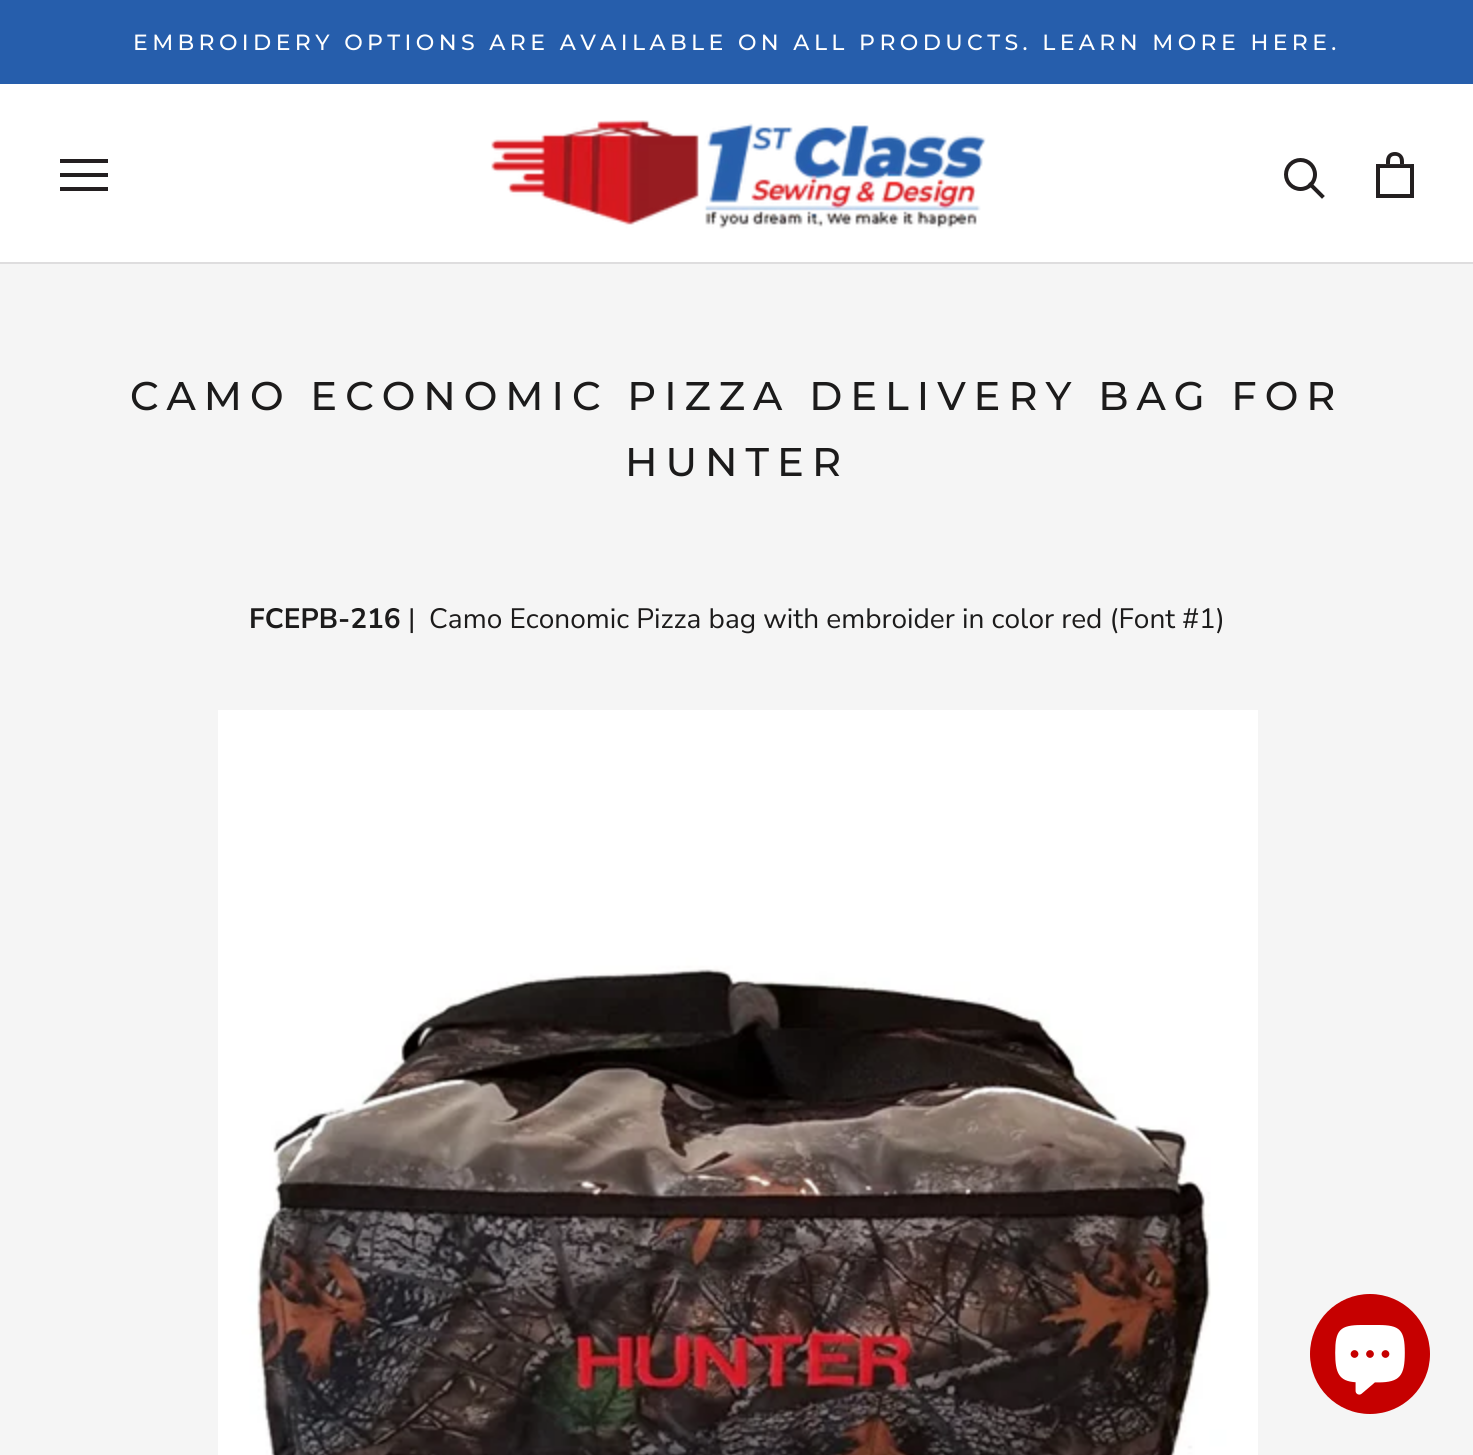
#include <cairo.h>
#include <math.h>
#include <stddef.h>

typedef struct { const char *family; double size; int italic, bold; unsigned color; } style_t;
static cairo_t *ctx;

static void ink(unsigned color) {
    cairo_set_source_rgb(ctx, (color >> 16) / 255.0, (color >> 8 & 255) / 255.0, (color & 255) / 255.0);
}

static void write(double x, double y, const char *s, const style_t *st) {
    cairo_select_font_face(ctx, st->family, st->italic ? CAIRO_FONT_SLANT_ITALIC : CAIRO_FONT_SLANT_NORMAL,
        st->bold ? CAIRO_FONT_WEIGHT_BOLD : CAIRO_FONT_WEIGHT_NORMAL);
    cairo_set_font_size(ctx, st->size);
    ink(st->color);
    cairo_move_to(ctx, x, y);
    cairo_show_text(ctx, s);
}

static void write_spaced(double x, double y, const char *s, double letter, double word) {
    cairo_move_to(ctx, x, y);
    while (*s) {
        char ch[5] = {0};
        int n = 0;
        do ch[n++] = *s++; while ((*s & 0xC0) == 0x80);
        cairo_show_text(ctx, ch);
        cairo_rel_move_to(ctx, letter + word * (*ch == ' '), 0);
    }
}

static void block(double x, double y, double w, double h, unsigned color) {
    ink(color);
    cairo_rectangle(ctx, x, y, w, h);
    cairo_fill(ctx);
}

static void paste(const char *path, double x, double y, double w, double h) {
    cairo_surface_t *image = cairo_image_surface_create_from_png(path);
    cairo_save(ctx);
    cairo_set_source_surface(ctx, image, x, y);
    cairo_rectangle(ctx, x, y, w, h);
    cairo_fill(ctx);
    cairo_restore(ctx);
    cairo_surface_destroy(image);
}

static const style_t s1 = {"Nunito Sans", 28, 0, 1, 0x1c1b1b};
static const style_t s2 = {"Nunito Sans", 28, 0, 0, 0x1c1b1b};

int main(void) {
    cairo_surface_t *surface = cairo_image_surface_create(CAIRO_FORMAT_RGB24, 1473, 1455);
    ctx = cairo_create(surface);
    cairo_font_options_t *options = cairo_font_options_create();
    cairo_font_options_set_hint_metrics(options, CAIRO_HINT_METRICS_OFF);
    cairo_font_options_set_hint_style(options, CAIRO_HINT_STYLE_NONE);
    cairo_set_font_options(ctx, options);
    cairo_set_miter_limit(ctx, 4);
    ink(0xf5f5f5);
    cairo_paint(ctx);
    block(0, 0, 1473, 84, 0x265eac);
    cairo_select_font_face(ctx, "Montserrat Medium", CAIRO_FONT_SLANT_NORMAL, CAIRO_FONT_WEIGHT_NORMAL);
    cairo_set_font_size(ctx, 22);
    ink(0xffffff);
    write_spaced(133, 50, "EMBROIDERY OPTIONS ARE AVAILABLE ON ALL PRODUCTS. LEARN MORE HERE.", 4.4, 0);
    block(0, 84, 1473, 178, 0xffffff);
    block(0, 262, 1473, 2, 0xdeddde);
    ink(0x231f20);
    cairo_new_path(ctx);
    cairo_move_to(ctx, 60, 191);
    cairo_line_to(ctx, 60, 187);
    cairo_line_to(ctx, 108, 187);
    cairo_line_to(ctx, 108, 191);
    cairo_close_path(ctx);
    cairo_move_to(ctx, 60, 173);
    cairo_line_to(ctx, 108, 173);
    cairo_line_to(ctx, 108, 177);
    cairo_line_to(ctx, 60, 177);
    cairo_close_path(ctx);
    cairo_move_to(ctx, 60, 159);
    cairo_line_to(ctx, 108, 159);
    cairo_line_to(ctx, 108, 163);
    cairo_line_to(ctx, 60, 163);
    cairo_close_path(ctx);
    cairo_fill(ctx);
    paste("pic1.png", 491, 120, 495, 109);
    cairo_new_path(ctx);
    cairo_move_to(ctx, 1322, 196);
    cairo_line_to(ctx, 1310.5, 184.5);
    cairo_set_line_width(ctx, 4);
    cairo_set_line_cap(ctx, CAIRO_LINE_CAP_SQUARE);
    cairo_stroke(ctx);
    cairo_arc(ctx, 1300.5, 174.5, 14.5, 0, 2 * M_PI);
    cairo_set_line_cap(ctx, CAIRO_LINE_CAP_BUTT);
    cairo_stroke(ctx);
    paste("pic2.png", 1376, 152, 38, 46);
    cairo_set_font_size(ctx, 40);
    ink(0x1c1b1b);
    write_spaced(130, 410, "CAMO ECONOMIC PIZZA DELIVERY BAG FOR", 8, 0);
    write_spaced(625, 476, "HUNTER", 8, 0);
    write(249, 628, "FCEPB-216", &s1);
    write(408, 628, "|", &s2);
    write(429, 628, "Camo Economic Pizza bag with embroider in color red (Font #1)", &s2);
    paste("pic3.png", 218, 710, 1040, 745);
    ink(0xc60000);
    cairo_arc(ctx, 1370, 1354, 60, 0, 2 * M_PI);
    cairo_fill(ctx);
    paste("pic4.png", 1335, 1325, 70, 70);
    cairo_surface_write_to_png(surface, "screenshot.png");
    cairo_font_options_destroy(options);
    cairo_destroy(ctx);
    cairo_surface_destroy(surface);
    return 0;
}
